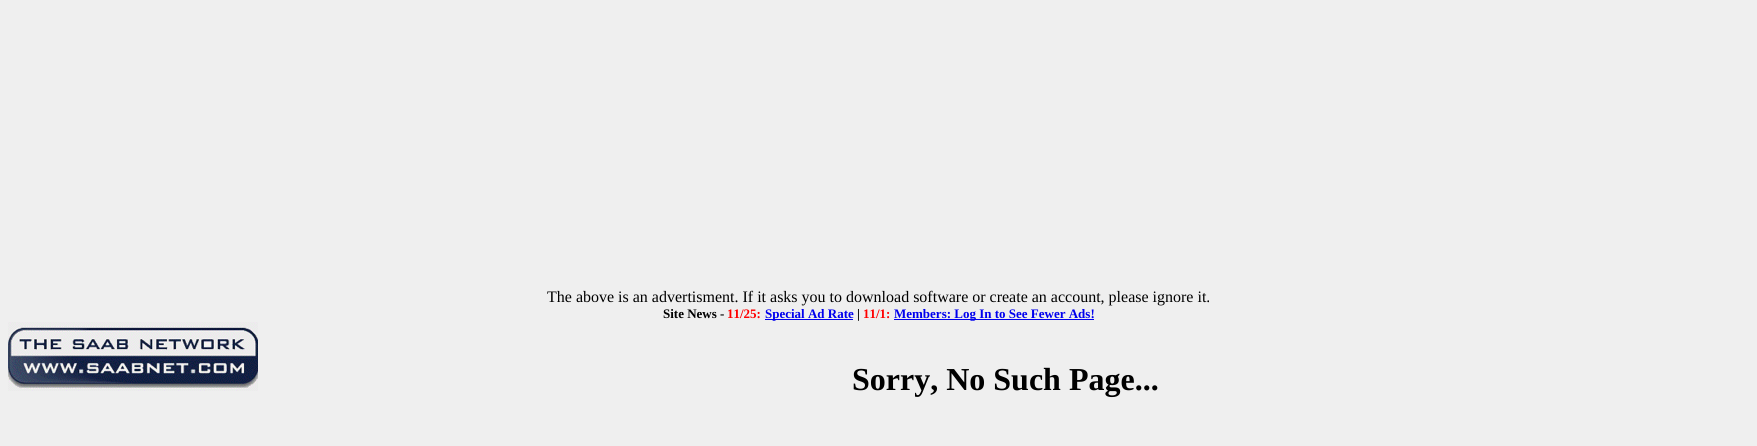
#include <cairo.h>
#include <math.h>
#include <stddef.h>

typedef struct { const char *family; double size; int italic, bold; unsigned color; } style_t;
static cairo_t *ctx;

static void ink(unsigned color) {
    cairo_set_source_rgb(ctx, (color >> 16) / 255.0, (color >> 8 & 255) / 255.0, (color & 255) / 255.0);
}

static void write(double x, double y, const char *s, const style_t *st) {
    cairo_select_font_face(ctx, st->family, st->italic ? CAIRO_FONT_SLANT_ITALIC : CAIRO_FONT_SLANT_NORMAL,
        st->bold ? CAIRO_FONT_WEIGHT_BOLD : CAIRO_FONT_WEIGHT_NORMAL);
    cairo_set_font_size(ctx, st->size);
    ink(st->color);
    cairo_move_to(ctx, x, y);
    cairo_show_text(ctx, s);
}

static void block(double x, double y, double w, double h, unsigned color) {
    ink(color);
    cairo_rectangle(ctx, x, y, w, h);
    cairo_fill(ctx);
}

static void paste(const char *path, double x, double y, double w, double h) {
    cairo_surface_t *image = cairo_image_surface_create_from_png(path);
    cairo_save(ctx);
    cairo_set_source_surface(ctx, image, x, y);
    cairo_rectangle(ctx, x, y, w, h);
    cairo_fill(ctx);
    cairo_restore(ctx);
    cairo_surface_destroy(image);
}

static const style_t s1 = {"Liberation Serif", 16, 0, 0, 0x000000};
static const style_t s2 = {"Liberation Serif", 13, 0, 1, 0x000000};
static const style_t s3 = {"Liberation Serif", 13, 0, 1, 0xff0000};
static const style_t s4 = {"Liberation Serif", 13, 0, 1, 0x0000ee};
static const style_t s5 = {"Liberation Serif", 32, 0, 1, 0x000000};

int main(void) {
    cairo_surface_t *surface = cairo_image_surface_create(CAIRO_FORMAT_RGB24, 1757, 446);
    ctx = cairo_create(surface);
    cairo_font_options_t *options = cairo_font_options_create();
    cairo_font_options_set_hint_metrics(options, CAIRO_HINT_METRICS_OFF);
    cairo_font_options_set_hint_style(options, CAIRO_HINT_STYLE_NONE);
    cairo_set_font_options(ctx, options);
    cairo_set_miter_limit(ctx, 4);
    ink(0xefefef);
    cairo_paint(ctx);
    write(547, 302, "The above is an advertisment. If it asks you to download software or create an account, please ignore it.", &s1);
    write(663, 318, "Site News -", &s2);
    write(727, 318, "11/25:", &s3);
    block(765, 319, 88, 1, 0x0000ee);
    write(765, 318, "Special Ad Rate", &s4);
    write(857, 318, "|", &s2);
    write(863, 318, "11/1:", &s3);
    block(894, 319, 200, 1, 0x0000ee);
    write(894, 318, "Members: Log In to See Fewer Ads!", &s4);
    paste("pic1.png", 8, 322, 250, 69);
    write(852, 390, "Sorry, No Such Page...", &s5);
    cairo_surface_write_to_png(surface, "screenshot.png");
    cairo_font_options_destroy(options);
    cairo_destroy(ctx);
    cairo_surface_destroy(surface);
    return 0;
}
